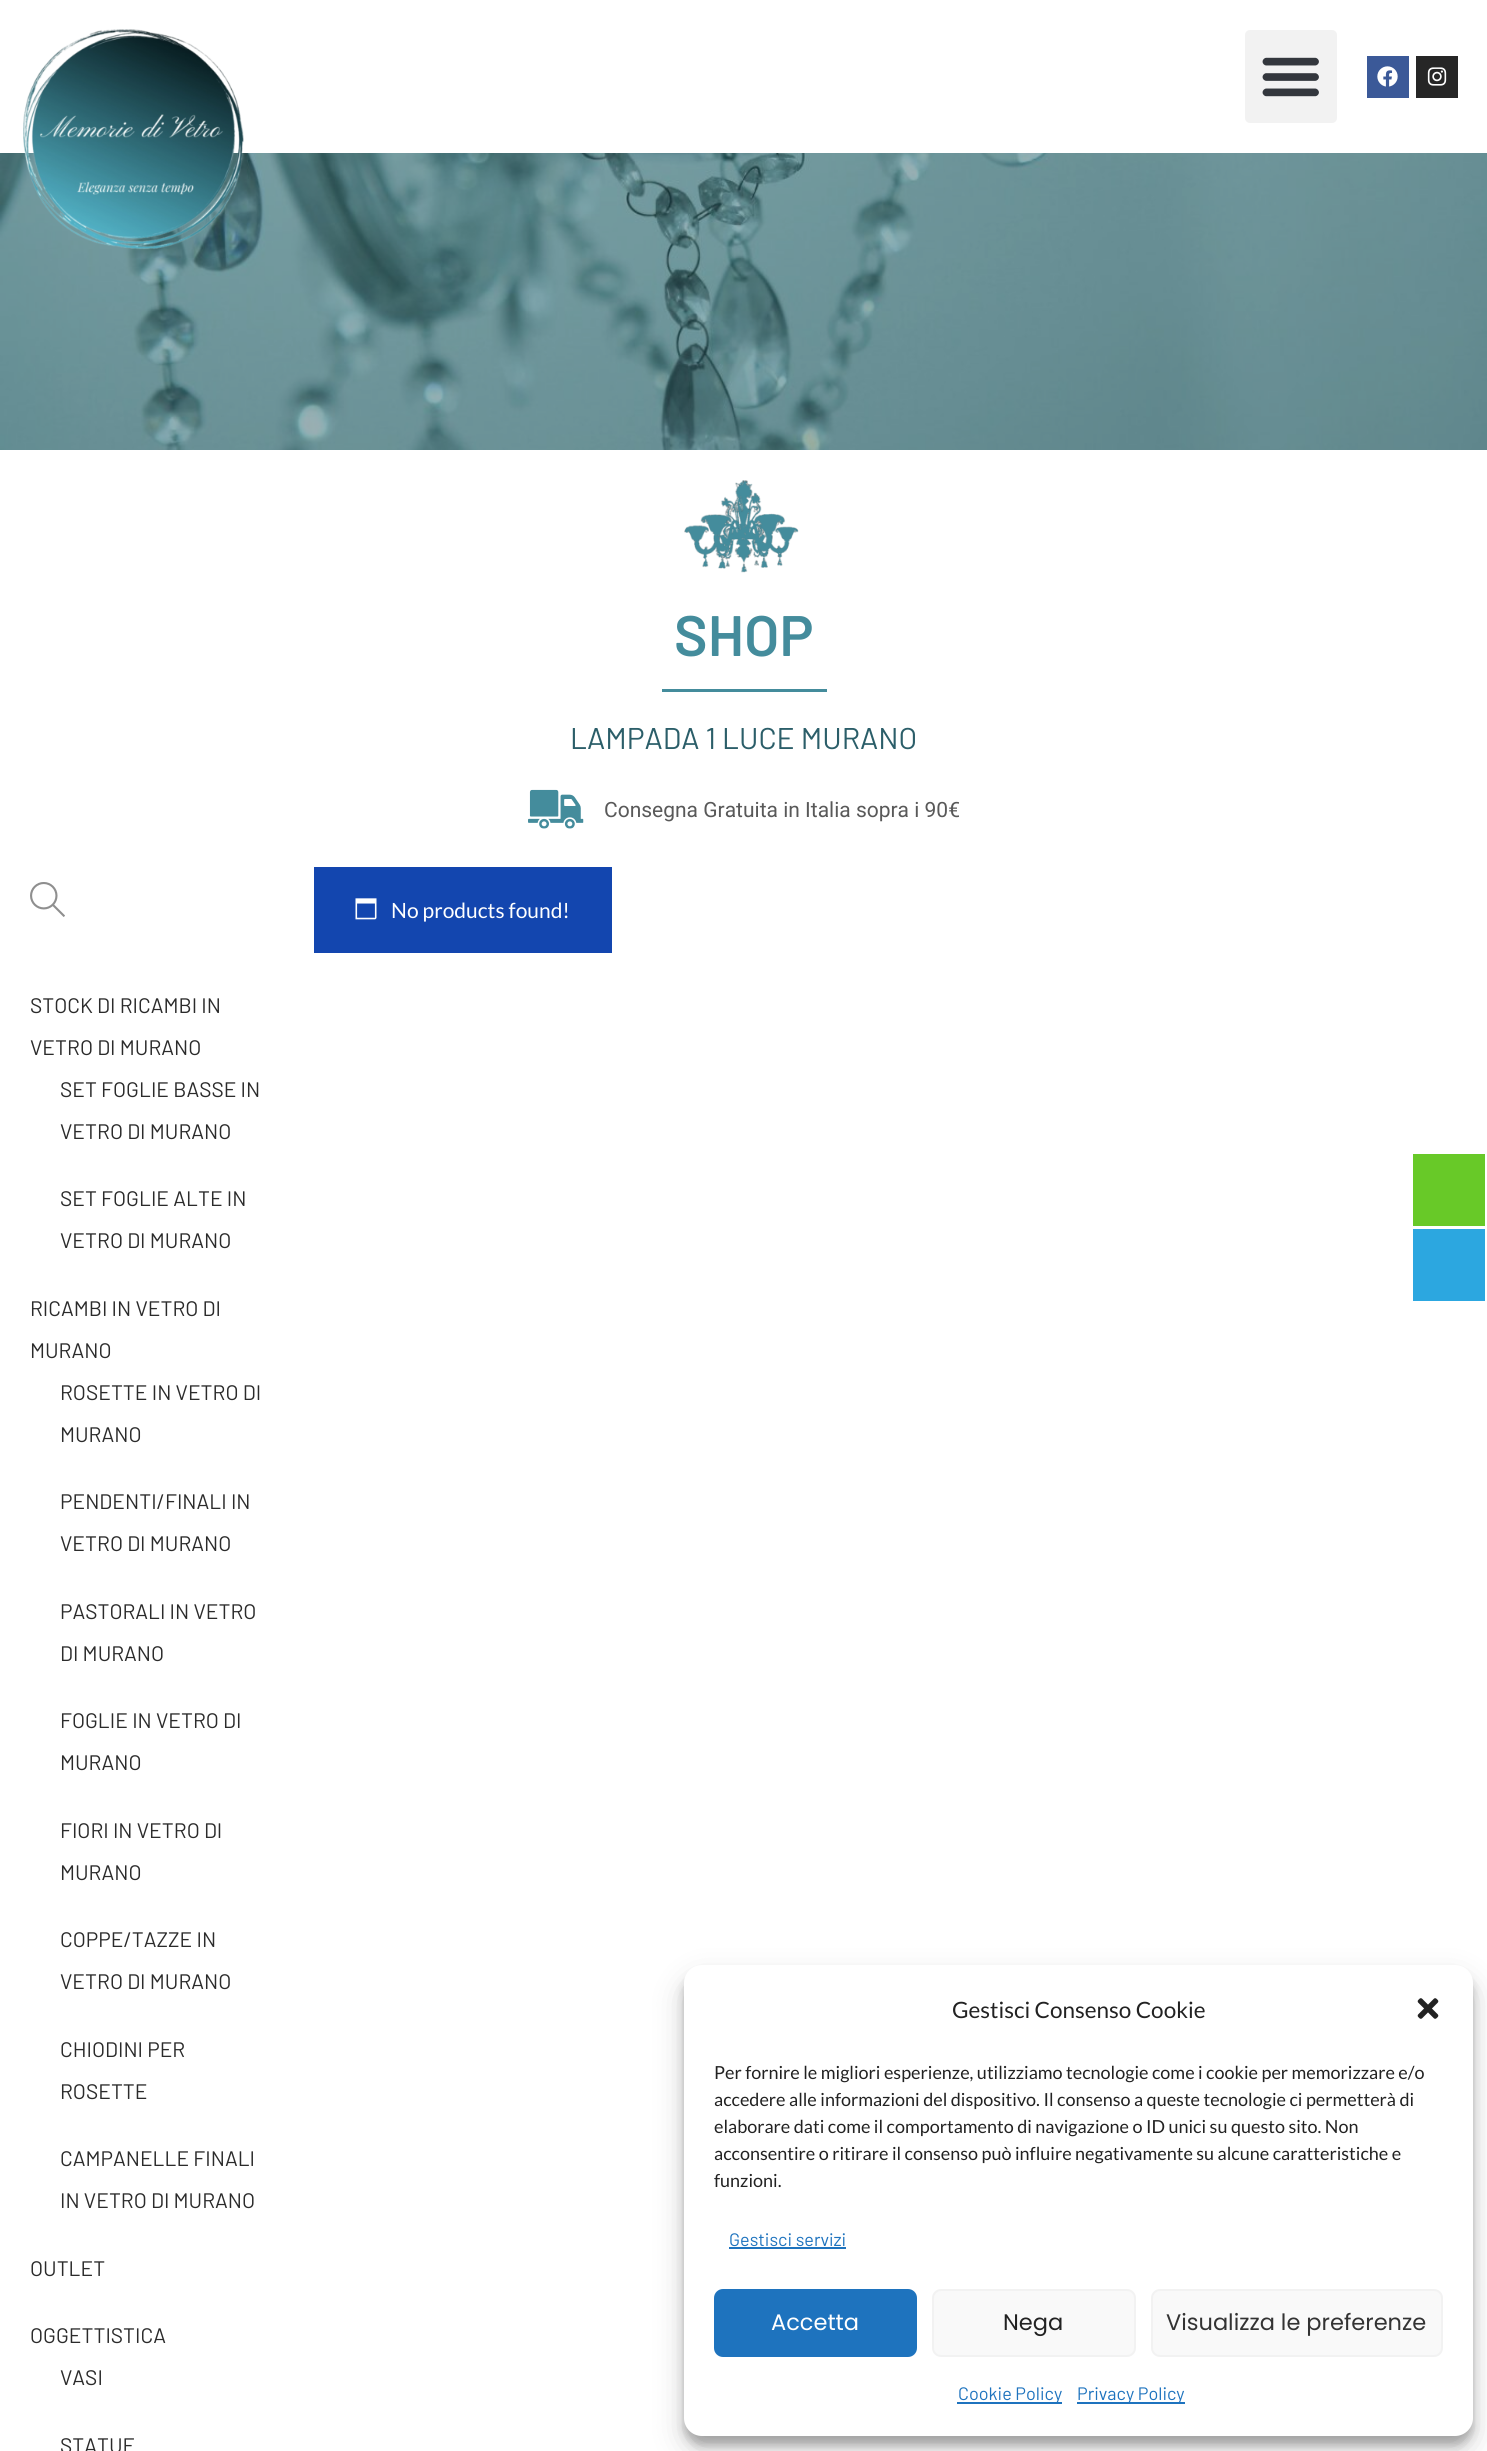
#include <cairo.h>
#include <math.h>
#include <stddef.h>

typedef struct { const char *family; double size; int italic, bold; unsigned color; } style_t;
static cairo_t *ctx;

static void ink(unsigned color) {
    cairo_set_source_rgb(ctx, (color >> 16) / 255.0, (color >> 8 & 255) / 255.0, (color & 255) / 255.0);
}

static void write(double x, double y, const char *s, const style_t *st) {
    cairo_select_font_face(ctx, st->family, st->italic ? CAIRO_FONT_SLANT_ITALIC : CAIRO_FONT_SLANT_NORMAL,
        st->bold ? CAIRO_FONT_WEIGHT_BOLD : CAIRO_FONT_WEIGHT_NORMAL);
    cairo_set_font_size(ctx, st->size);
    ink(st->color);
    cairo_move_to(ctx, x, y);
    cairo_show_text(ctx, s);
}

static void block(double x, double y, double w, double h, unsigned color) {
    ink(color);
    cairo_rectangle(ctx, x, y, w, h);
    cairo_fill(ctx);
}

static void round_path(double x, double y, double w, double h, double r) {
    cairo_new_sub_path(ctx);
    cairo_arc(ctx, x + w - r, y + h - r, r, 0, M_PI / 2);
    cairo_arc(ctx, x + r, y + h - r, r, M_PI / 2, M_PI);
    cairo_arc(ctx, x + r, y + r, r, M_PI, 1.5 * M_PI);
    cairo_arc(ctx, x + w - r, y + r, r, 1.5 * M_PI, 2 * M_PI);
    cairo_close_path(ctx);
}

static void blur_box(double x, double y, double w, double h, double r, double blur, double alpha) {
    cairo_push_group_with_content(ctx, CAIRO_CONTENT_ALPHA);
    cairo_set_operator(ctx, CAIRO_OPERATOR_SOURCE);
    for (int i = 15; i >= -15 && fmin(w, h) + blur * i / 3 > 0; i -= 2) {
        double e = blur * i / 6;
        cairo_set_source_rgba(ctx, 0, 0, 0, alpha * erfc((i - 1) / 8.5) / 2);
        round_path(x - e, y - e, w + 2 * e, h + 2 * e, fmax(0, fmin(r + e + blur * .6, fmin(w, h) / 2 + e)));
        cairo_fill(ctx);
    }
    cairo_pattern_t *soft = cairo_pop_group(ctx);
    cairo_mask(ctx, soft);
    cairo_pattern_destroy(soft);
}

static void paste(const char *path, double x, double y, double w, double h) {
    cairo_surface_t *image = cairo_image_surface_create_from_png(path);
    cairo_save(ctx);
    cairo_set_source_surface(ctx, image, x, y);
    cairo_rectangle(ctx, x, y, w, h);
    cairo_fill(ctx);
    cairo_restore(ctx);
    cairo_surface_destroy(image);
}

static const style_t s1 = {"Barlow SemiBold", 57, 0, 0, 0x448c9c};
static const style_t s2 = {"Barlow", 30, 0, 0, 0x2b5e69};
static const style_t s3 = {"Roboto", 21, 0, 0, 0x595959};
static const style_t s4 = {"Lato", 21, 0, 0, 0xffffff};
static const style_t s5 = {"Barlow", 21, 0, 0, 0x2b2b2b};
static const style_t s6 = {"Lato", 22.5, 0, 0, 0x222222};
static const style_t s7 = {"Lato", 18, 0, 0, 0x222222};
static const style_t s8 = {"Barlow", 18, 0, 0, 0x1e73be};
static const style_t s9 = {"Poppins", 22.5, 0, 0, 0xffffff};
static const style_t s10 = {"Poppins", 22.5, 0, 0, 0x222222};
static const style_t s11 = {"Poppins", 22.5, 0, 0, 0x333333};

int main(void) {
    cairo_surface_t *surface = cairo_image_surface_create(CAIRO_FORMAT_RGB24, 1487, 2451);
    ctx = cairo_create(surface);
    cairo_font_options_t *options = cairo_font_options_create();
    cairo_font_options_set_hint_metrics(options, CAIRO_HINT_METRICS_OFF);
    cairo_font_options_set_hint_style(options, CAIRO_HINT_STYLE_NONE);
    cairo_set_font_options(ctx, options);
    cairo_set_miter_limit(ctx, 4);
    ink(0xffffff);
    cairo_paint(ctx);
    paste("pic5.png", 0, 153, 1487, 297);
    paste("pic1.png", 23, 29, 221, 221);
    ink(0xf2f2f2);
    round_path(1245, 30, 92, 93, 5);
    cairo_fill(ctx);
    paste("pic2.png", 1262, 57, 57, 40);
    block(1367, 56, 42, 42, 0x3b5998);
    paste("pic3.png", 1377, 66, 21, 21);
    block(1416, 56, 42, 42, 0x262626);
    paste("pic4.png", 1427, 67, 20, 19);
    paste("pic6.png", 684, 480, 115, 93);
    write(674, 656, "SHOP", &s1);
    block(662, 689, 165, 3, 0x448c9c);
    write(570, 749, "LAMPADA 1 LUCE MURANO", &s2);
    paste("pic7.png", 528, 789, 56, 40);
    write(604, 817, "Consegna Gratuita in Italia sopra i 90€", &s3);
    block(314, 867, 298, 86, 0x1346af);
    paste("pic8.png", 355, 898, 22, 22);
    write(391, 918, "No products found!", &s4);
    paste("pic9.png", 30, 882, 35, 35);
    write(30, 1013, "STOCK DI RICAMBI IN", &s5);
    write(30, 1055, "VETRO DI MURANO", &s5);
    write(60, 1097, "SET FOGLIE BASSE IN", &s5);
    write(60, 1139, "VETRO DI MURANO", &s5);
    write(60, 1206, "SET FOGLIE ALTE IN", &s5);
    write(60, 1248, "VETRO DI MURANO", &s5);
    write(30, 1316, "RICAMBI IN VETRO DI", &s5);
    write(30, 1358, "MURANO", &s5);
    write(60, 1400, "ROSETTE IN VETRO DI", &s5);
    write(60, 1442, "MURANO", &s5);
    write(60, 1509, "PENDENTI/FINALI IN", &s5);
    write(60, 1551, "VETRO DI MURANO", &s5);
    write(60, 1619, "PASTORALI IN VETRO", &s5);
    write(60, 1661, "DI MURANO", &s5);
    write(60, 1728, "FOGLIE IN VETRO DI", &s5);
    write(60, 1770, "MURANO", &s5);
    write(60, 1838, "FIORI IN VETRO DI", &s5);
    write(60, 1880, "MURANO", &s5);
    write(60, 1947, "COPPE/TAZZE IN", &s5);
    write(60, 1989, "VETRO DI MURANO", &s5);
    write(60, 2057, "CHIODINI PER", &s5);
    write(60, 2099, "ROSETTE", &s5);
    write(60, 2166, "CAMPANELLE FINALI", &s5);
    write(60, 2208, "IN VETRO DI MURANO", &s5);
    write(30, 2276, "OUTLET", &s5);
    write(30, 2343, "OGGETTISTICA", &s5);
    write(60, 2385, "VASI", &s5);
    write(60, 2453, "STATUE", &s5);
    block(1413, 1154, 72, 72, 0x68c928);
    block(1413, 1229, 72, 72, 0x2ca7e0);
    ink(0x000000);
    blur_box(684, 1974, 789, 471, 18, 4.5, 0.23);
    blur_box(684, 1980, 789, 471, 18, 15, 0.19);
    ink(0xffffff);
    round_path(684, 1965, 789, 471, 18);
    cairo_fill(ctx);
    write(952, 2018, "Gestisci Consenso Cookie", &s6);
    paste("pic10.png", 1417, 1998, 22, 21);
    write(714, 2079, "Per fornire le migliori esperienze, utilizziamo tecnologie come i cookie per memorizzare e/o", &s7);
    write(714, 2106, "accedere alle informazioni del dispositivo. Il consenso a queste tecnologie ci permetterà di", &s7);
    write(714, 2133, "elaborare dati come il comportamento di navigazione o ID unici su questo sito. Non", &s7);
    write(714, 2160, "acconsentire o ritirare il consenso può influire negativamente su alcune caratteristiche e", &s7);
    write(714, 2187, "funzioni.", &s7);
    write(729, 2246, "Gestisci servizi", &s8);
    block(729, 2247, 117, 2, 0x1e73be);
    round_path(715, 2290, 201, 66, 8);
    cairo_fill_preserve(ctx);
    cairo_stroke(ctx);
    write(771, 2330, "Accetta", &s9);
    ink(0xf9f9f9);
    round_path(933, 2290, 202, 66, 8);
    cairo_fill_preserve(ctx);
    ink(0xf2f2f2);
    cairo_stroke(ctx);
    write(1003, 2330, "Nega", &s10);
    ink(0xf9f9f9);
    round_path(1152, 2290, 290, 66, 8);
    cairo_fill_preserve(ctx);
    ink(0xf2f2f2);
    cairo_stroke(ctx);
    write(1166, 2330, "Visualizza le preferenze", &s11);
    block(957, 2402, 105, 2, 0x1e73be);
    write(958, 2400, "Cookie Policy", &s8);
    block(1077, 2402, 108, 2, 0x1e73be);
    write(1077, 2400, "Privacy Policy", &s8);
    cairo_surface_write_to_png(surface, "screenshot.png");
    cairo_font_options_destroy(options);
    cairo_destroy(ctx);
    cairo_surface_destroy(surface);
    return 0;
}
